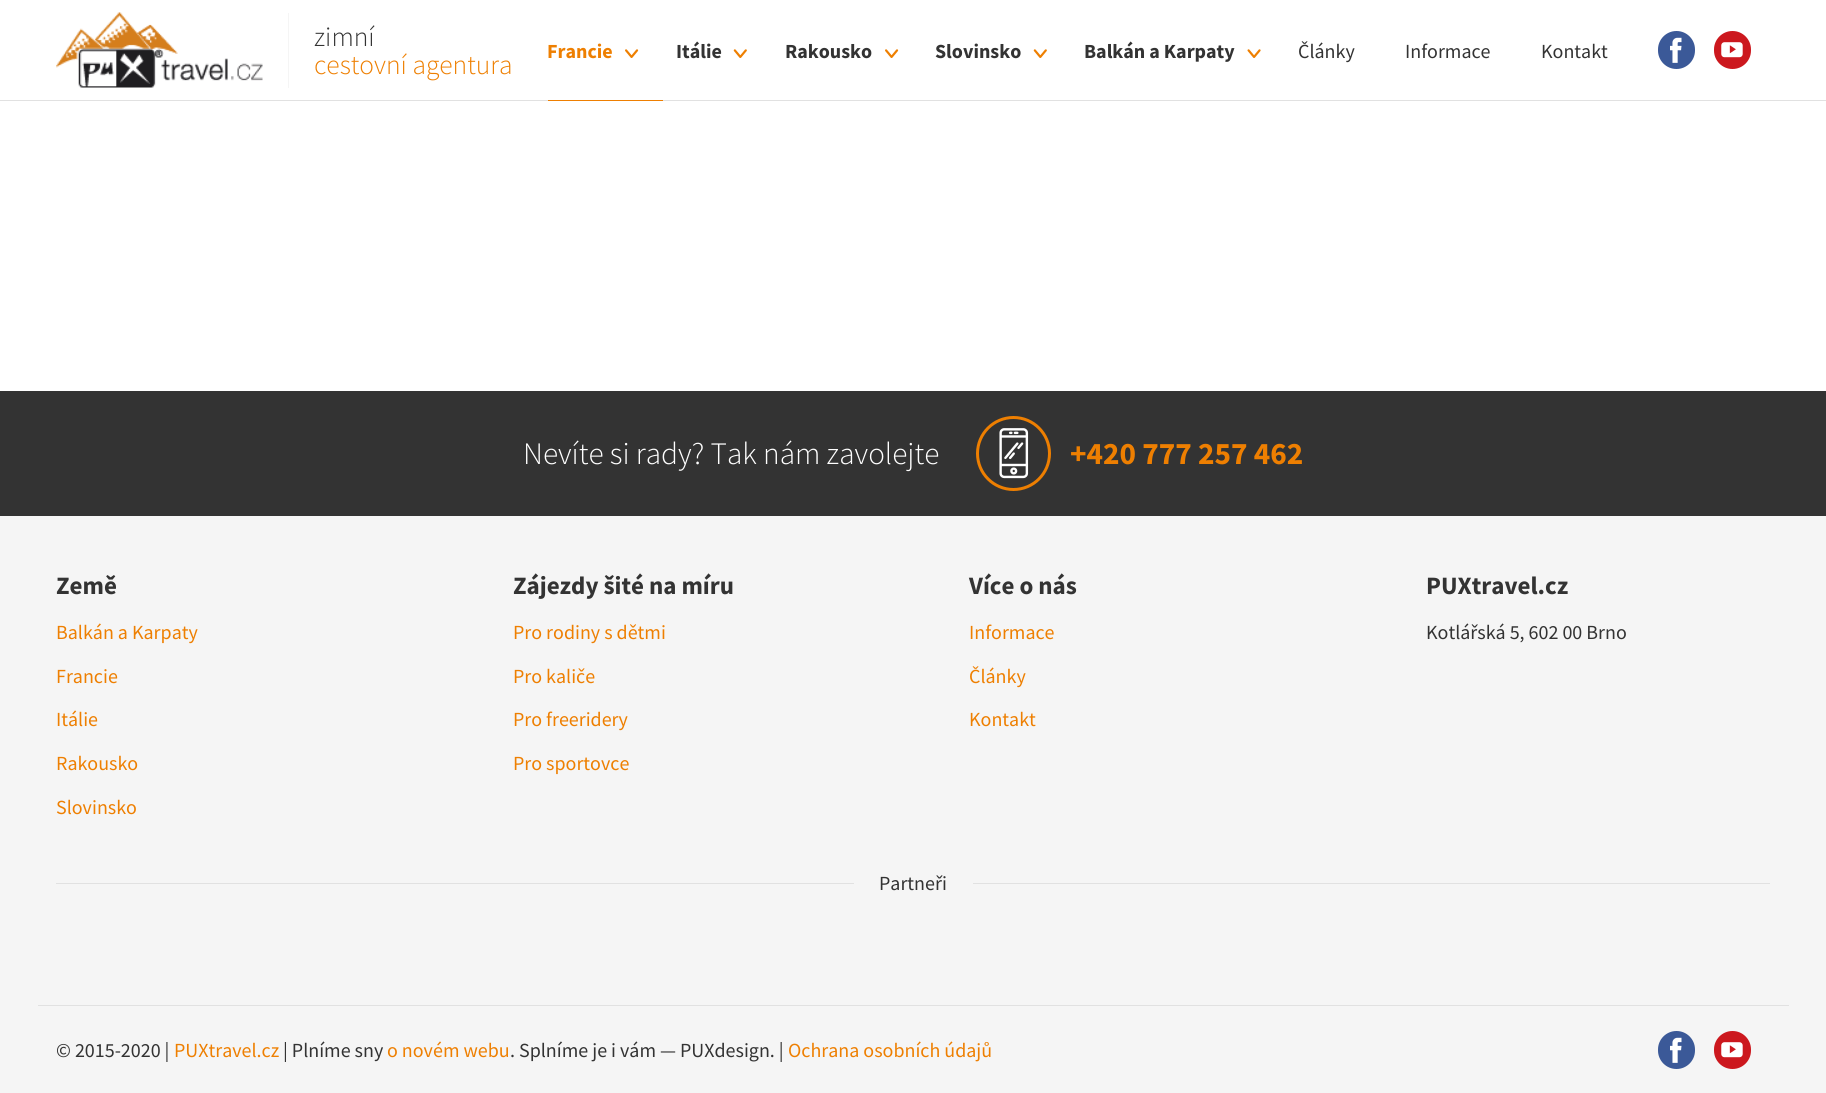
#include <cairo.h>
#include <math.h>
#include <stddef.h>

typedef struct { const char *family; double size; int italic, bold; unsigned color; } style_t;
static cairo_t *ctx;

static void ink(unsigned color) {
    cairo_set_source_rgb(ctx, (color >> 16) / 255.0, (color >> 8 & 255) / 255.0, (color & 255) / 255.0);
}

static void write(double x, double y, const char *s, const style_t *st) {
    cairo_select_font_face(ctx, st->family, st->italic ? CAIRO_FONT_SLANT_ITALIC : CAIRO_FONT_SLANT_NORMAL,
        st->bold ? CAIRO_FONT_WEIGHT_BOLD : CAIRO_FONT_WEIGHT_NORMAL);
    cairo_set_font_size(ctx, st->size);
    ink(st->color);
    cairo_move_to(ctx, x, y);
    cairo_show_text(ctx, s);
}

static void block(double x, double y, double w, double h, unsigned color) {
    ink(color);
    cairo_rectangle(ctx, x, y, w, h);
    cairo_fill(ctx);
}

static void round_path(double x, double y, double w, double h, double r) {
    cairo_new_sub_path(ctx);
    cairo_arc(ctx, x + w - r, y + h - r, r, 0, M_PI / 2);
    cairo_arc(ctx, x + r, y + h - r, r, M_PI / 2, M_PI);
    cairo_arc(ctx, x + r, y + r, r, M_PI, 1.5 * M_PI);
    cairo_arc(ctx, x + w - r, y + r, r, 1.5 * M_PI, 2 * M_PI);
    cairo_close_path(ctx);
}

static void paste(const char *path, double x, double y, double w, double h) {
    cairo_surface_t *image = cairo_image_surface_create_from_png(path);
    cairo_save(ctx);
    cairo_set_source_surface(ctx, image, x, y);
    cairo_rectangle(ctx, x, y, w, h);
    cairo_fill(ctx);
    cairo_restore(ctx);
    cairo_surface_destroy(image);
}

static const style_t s1 = {"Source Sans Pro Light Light", 27.5, 0, 0, 0x333333};
static const style_t s2 = {"Source Sans Pro Light Light", 27.5, 0, 0, 0xee7f01};
static const style_t s3 = {"Source Sans Pro", 20, 0, 1, 0xee7f01};
static const style_t s4 = {"Source Sans Pro", 20, 0, 1, 0x333333};
static const style_t s5 = {"Source Sans Pro", 20, 0, 0, 0x333333};
static const style_t s6 = {"Source Sans Pro Light Light", 31.25, 0, 0, 0xffffff};
static const style_t s7 = {"Source Sans Pro", 31.25, 0, 1, 0xee7f01};
static const style_t s8 = {"Source Sans Pro", 25, 0, 1, 0x333333};
static const style_t s9 = {"Source Sans Pro", 20, 0, 0, 0xee7f01};

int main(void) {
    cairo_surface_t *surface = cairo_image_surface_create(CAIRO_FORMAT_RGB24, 1826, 1093);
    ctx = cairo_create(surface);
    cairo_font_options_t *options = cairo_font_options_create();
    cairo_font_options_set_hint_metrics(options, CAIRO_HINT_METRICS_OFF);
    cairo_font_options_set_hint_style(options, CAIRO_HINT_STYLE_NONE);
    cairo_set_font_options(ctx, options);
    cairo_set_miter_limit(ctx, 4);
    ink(0xffffff);
    cairo_paint(ctx);
    block(0, 100, 1826, 1, 0xe1e1e1);
    block(288, 13, 1, 75, 0xf5f5f5);
    paste("pic1.png", 56, 12, 207, 76);
    write(314, 46, "zimní", &s1);
    write(314, 74, "cestovní agentura", &s2);
    write(547, 58, "Francie", &s3);
    block(548, 100, 115, 1, 0xee7f01);
    paste("pic2.png", 625, 49, 14, 9);
    write(676, 58, "Itálie", &s4);
    paste("pic3.png", 733, 49, 14, 9);
    write(785, 58, "Rakousko", &s4);
    paste("pic2.png", 885, 49, 14, 9);
    write(935, 58, "Slovinsko", &s4);
    paste("pic3.png", 1033, 49, 14, 9);
    write(1084, 58, "Balkán a Karpaty", &s4);
    paste("pic4.png", 1247, 49, 14, 9);
    write(1298, 58, "Články", &s5);
    write(1405, 58, "Informace", &s5);
    write(1541, 58, "Kontakt", &s5);
    ink(0x3b5998);
    round_path(1658, 31, 37, 38, 18.5);
    cairo_fill(ctx);
    paste("pic5.png", 1670, 37, 12, 26);
    ink(0xcc181e);
    round_path(1714, 31, 37, 38, 18.5);
    cairo_fill(ctx);
    paste("pic6.png", 1721, 42, 22, 16);
    block(0, 516, 1826, 577, 0xf5f5f5);
    block(0, 391, 1826, 125, 0x333333);
    write(523, 464, "Nevíte si rady? Tak nám zavolejte", &s6);
    cairo_new_path(ctx);
    cairo_arc(ctx, 1013.5, 453.5, 36, 0, 2 * M_PI);
    ink(0xee7f01);
    cairo_set_line_width(ctx, 3);
    cairo_stroke(ctx);
    paste("pic7.png", 999, 428, 30, 51);
    write(1070, 464, "+420 777 257 462", &s7);
    write(56, 594, "Země", &s8);
    write(56, 639, "Balkán a Karpaty", &s9);
    write(56, 683, "Francie", &s9);
    write(56, 726, "Itálie", &s9);
    write(56, 770, "Rakousko", &s9);
    write(56, 814, "Slovinsko", &s9);
    write(513, 594, "Zájezdy šité na míru", &s8);
    write(513, 639, "Pro rodiny s dětmi", &s9);
    write(513, 683, "Pro kaliče", &s9);
    write(513, 726, "Pro freeridery", &s9);
    write(513, 770, "Pro sportovce", &s9);
    write(969, 594, "Více o nás", &s8);
    write(969, 639, "Informace", &s9);
    write(969, 683, "Články", &s9);
    write(969, 726, "Kontakt", &s9);
    write(1426, 594, "PUXtravel.cz", &s8);
    write(1426, 639, "Kotlářská 5, 602 00 Brno", &s5);
    block(56, 883, 798, 1, 0xe1e1e1);
    write(879, 890, "Partneři", &s5);
    block(973, 883, 797, 1, 0xe1e1e1);
    block(38, 1005, 1751, 1, 0xe1e1e1);
    write(56, 1057, "© 2015-2020 |", &s5);
    write(174, 1057, "PUXtravel.cz", &s9);
    write(283, 1057, "| Plníme sny", &s5);
    write(387, 1057, "o novém webu", &s9);
    write(510, 1057, ". Splníme je i vám — PUXdesign. |", &s5);
    write(788, 1057, "Ochrana osobních údajů", &s9);
    ink(0x3b5998);
    round_path(1658, 1031, 37, 38, 18.5);
    cairo_fill(ctx);
    paste("pic5.png", 1670, 1037, 12, 26);
    ink(0xcc181e);
    round_path(1714, 1031, 37, 38, 18.5);
    cairo_fill(ctx);
    paste("pic6.png", 1721, 1042, 22, 16);
    cairo_surface_write_to_png(surface, "screenshot.png");
    cairo_font_options_destroy(options);
    cairo_destroy(ctx);
    cairo_surface_destroy(surface);
    return 0;
}
